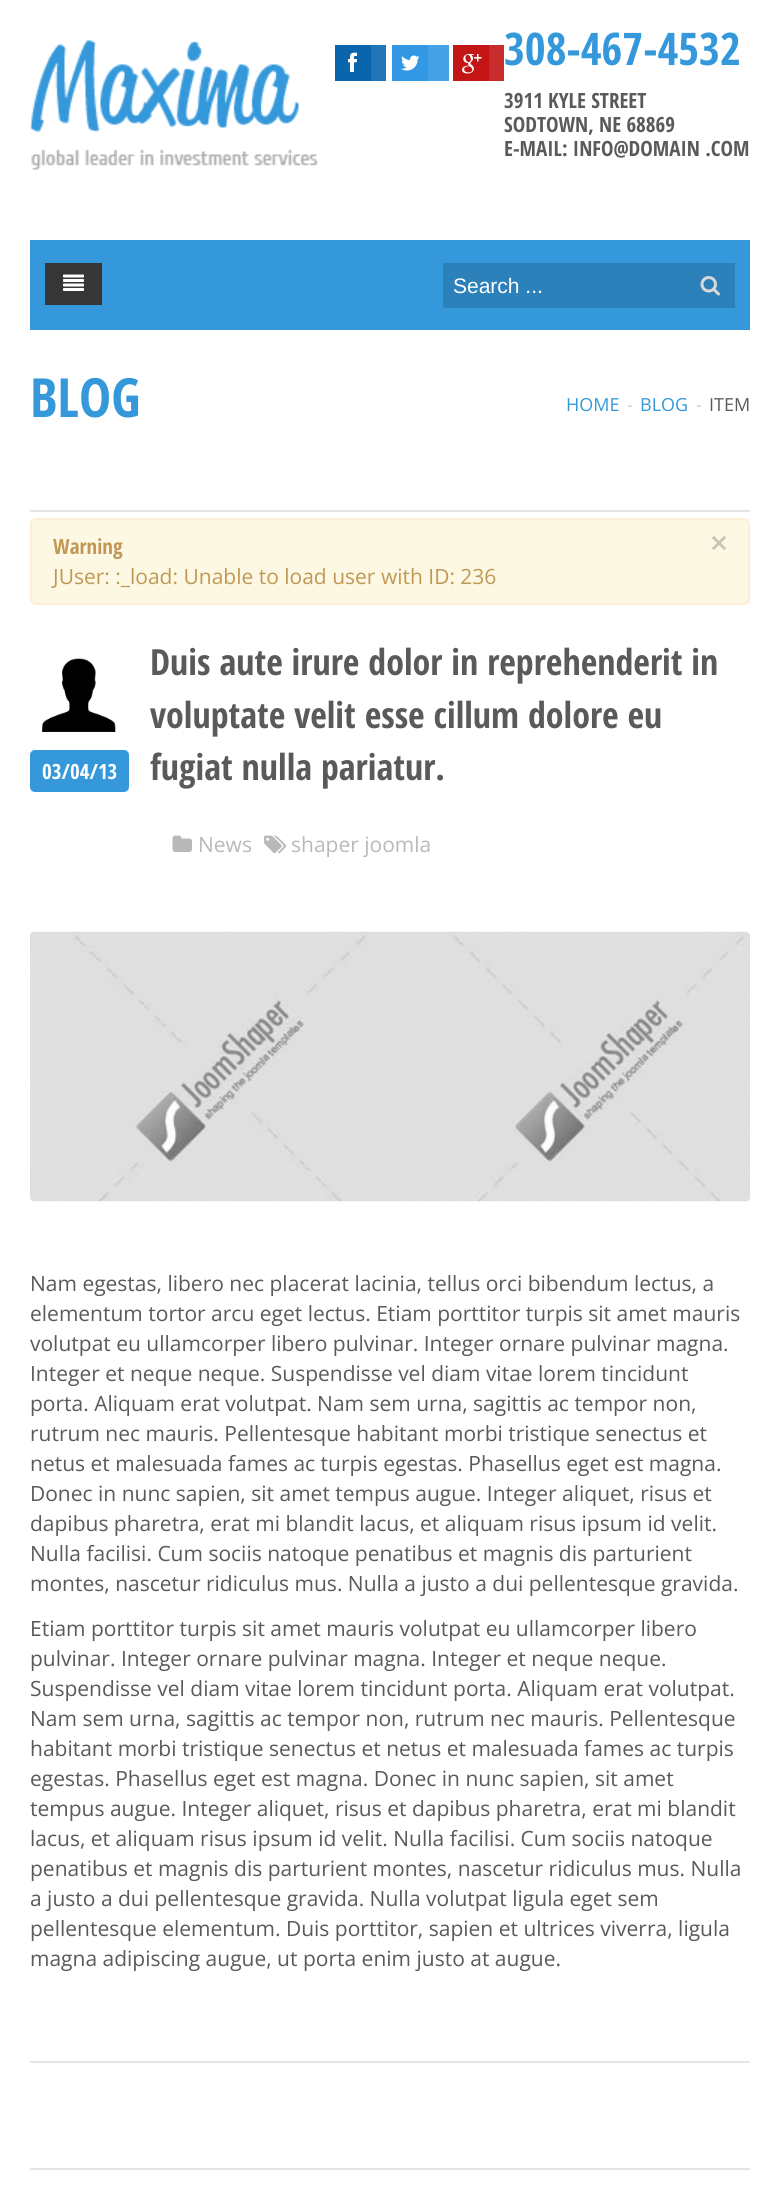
#include <cairo.h>
#include <math.h>
#include <stddef.h>

typedef struct { const char *family; double size; int italic, bold; unsigned color; } style_t;
static cairo_t *ctx;

static void ink(unsigned color) {
    cairo_set_source_rgb(ctx, (color >> 16) / 255.0, (color >> 8 & 255) / 255.0, (color & 255) / 255.0);
}

static void write(double x, double y, const char *s, const style_t *st) {
    cairo_select_font_face(ctx, st->family, st->italic ? CAIRO_FONT_SLANT_ITALIC : CAIRO_FONT_SLANT_NORMAL,
        st->bold ? CAIRO_FONT_WEIGHT_BOLD : CAIRO_FONT_WEIGHT_NORMAL);
    cairo_set_font_size(ctx, st->size);
    ink(st->color);
    cairo_move_to(ctx, x, y);
    cairo_show_text(ctx, s);
}

static void block(double x, double y, double w, double h, unsigned color) {
    ink(color);
    cairo_rectangle(ctx, x, y, w, h);
    cairo_fill(ctx);
}

static void round_path(double x, double y, double w, double h, double r) {
    cairo_new_sub_path(ctx);
    cairo_arc(ctx, x + w - r, y + h - r, r, 0, M_PI / 2);
    cairo_arc(ctx, x + r, y + h - r, r, M_PI / 2, M_PI);
    cairo_arc(ctx, x + r, y + r, r, M_PI, 1.5 * M_PI);
    cairo_arc(ctx, x + w - r, y + r, r, 1.5 * M_PI, 2 * M_PI);
    cairo_close_path(ctx);
}

static void paste(const char *path, double x, double y, double w, double h) {
    cairo_surface_t *image = cairo_image_surface_create_from_png(path);
    cairo_save(ctx);
    cairo_set_source_surface(ctx, image, x, y);
    cairo_rectangle(ctx, x, y, w, h);
    cairo_fill(ctx);
    cairo_restore(ctx);
    cairo_surface_destroy(image);
}

static const style_t s1 = {"Open Sans Condensed", 45, 0, 1, 0x3498db};
static const style_t s2 = {"Open Sans Condensed", 21, 0, 1, 0x5a5a5a};
static const style_t s3 = {"Liberation Sans", 21, 0, 0, 0xffffff};
static const style_t s4 = {"Open Sans Condensed", 54, 0, 1, 0x3498db};
static const style_t s5 = {"Open Sans", 18, 0, 0, 0x3498db};
static const style_t s6 = {"Open Sans", 18, 0, 0, 0xcccccc};
static const style_t s7 = {"Open Sans", 18, 0, 0, 0x5a5a5a};
static const style_t s8 = {"Open Sans Condensed", 21, 0, 1, 0xc09853};
static const style_t s9 = {"Open Sans", 30, 0, 1, 0xcac6b6};
static const style_t s10 = {"Open Sans", 21, 0, 0, 0xc09853};
static const style_t s11 = {"Open Sans Condensed", 21, 0, 1, 0xffffff};
static const style_t s12 = {"Open Sans Condensed", 36, 0, 1, 0x5a5a5a};
static const style_t s13 = {"Open Sans", 21, 0, 0, 0xb9b9b9};
static const style_t s14 = {"Open Sans", 21, 0, 0, 0x5a5a5a};

int main(void) {
    cairo_surface_t *surface = cairo_image_surface_create(CAIRO_FORMAT_RGB24, 779, 2189);
    ctx = cairo_create(surface);
    cairo_font_options_t *options = cairo_font_options_create();
    cairo_font_options_set_hint_metrics(options, CAIRO_HINT_METRICS_OFF);
    cairo_font_options_set_hint_style(options, CAIRO_HINT_STYLE_NONE);
    cairo_set_font_options(ctx, options);
    cairo_set_miter_limit(ctx, 4);
    ink(0xffffff);
    cairo_paint(ctx);
    paste("pic1.png", 30, 40, 288, 130);
    block(371, 45, 15, 36, 0x2175b4);
    block(335, 45, 36, 36, 0x0966ac);
    paste("pic2.png", 348, 52, 9, 20);
    block(428, 45, 21, 36, 0x46a2e7);
    block(392, 45, 36, 36, 0x3298e4);
    paste("pic3.png", 401, 55, 19, 16);
    block(489, 45, 15, 36, 0xc92c2c);
    block(453, 45, 36, 36, 0xc31515);
    paste("pic4.png", 462, 54, 20, 20);
    write(504, 65, "308-467-4532", &s1);
    write(504, 108, "3911 KYLE STREET", &s2);
    write(504, 132, "SODTOWN, NE 68869", &s2);
    write(504, 156, "E-MAIL: INFO@DOMAIN .COM", &s2);
    block(30, 240, 720, 90, 0x3498db);
    block(443, 263, 292, 45, 0x2c81ba);
    block(45, 263, 57, 42, 0x363636);
    paste("pic5.png", 63, 274, 21, 17);
    write(453, 293, "Search ...", &s3);
    paste("pic6.png", 700, 276, 20, 20);
    block(30, 510, 720, 2, 0xe5e5e5);
    write(30, 417, "BLOG", &s4);
    write(566, 411, "HOME", &s5);
    write(627, 411, "-", &s6);
    write(640, 411, "BLOG", &s5);
    write(696, 411, "-", &s6);
    write(709, 411, "ITEM", &s7);
    ink(0xfcf8e3);
    round_path(31, 519, 718, 85, 5);
    cairo_fill_preserve(ctx);
    ink(0xfbeed5);
    cairo_stroke(ctx);
    write(53, 554, "Warning", &s8);
    write(710, 554, "×", &s9);
    write(53, 584, "JUser: :_load: Unable to load user with ID: 236", &s10);
    paste("pic7.png", 42, 658, 74, 74);
    ink(0x3498db);
    round_path(30, 750, 99, 42, 5);
    cairo_fill(ctx);
    write(42, 779, "03/04/13", &s11);
    write(150, 675, "Duis aute irure dolor in reprehenderit in", &s12);
    write(150, 728, "voluptate velit esse cillum dolore eu", &s12);
    write(150, 780, "fugiat nulla pariatur.", &s12);
    paste("pic8.png", 172, 835, 20, 17);
    write(198, 852, "News", &s13);
    paste("pic9.png", 264, 835, 23, 19);
    write(291, 852, "shaper joomla", &s13);
    block(30, 2061, 720, 2, 0xe5e5e5);
    paste("pic10.png", 30, 931, 720, 271);
    write(30, 1291, "Nam egestas, libero nec placerat lacinia, tellus orci bibendum lectus, a", &s14);
    write(30, 1321, "elementum tortor arcu eget lectus. Etiam porttitor turpis sit amet mauris", &s14);
    write(30, 1351, "volutpat eu ullamcorper libero pulvinar. Integer ornare pulvinar magna.", &s14);
    write(30, 1381, "Integer et neque neque. Suspendisse vel diam vitae lorem tincidunt", &s14);
    write(30, 1411, "porta. Aliquam erat volutpat. Nam sem urna, sagittis ac tempor non,", &s14);
    write(30, 1441, "rutrum nec mauris. Pellentesque habitant morbi tristique senectus et", &s14);
    write(30, 1471, "netus et malesuada fames ac turpis egestas. Phasellus eget est magna.", &s14);
    write(30, 1501, "Donec in nunc sapien, sit amet tempus augue. Integer aliquet, risus et", &s14);
    write(30, 1531, "dapibus pharetra, erat mi blandit lacus, et aliquam risus ipsum id velit.", &s14);
    write(30, 1561, "Nulla facilisi. Cum sociis natoque penatibus et magnis dis parturient", &s14);
    write(30, 1591, "montes, nascetur ridiculus mus. Nulla a justo a dui pellentesque gravida.", &s14);
    write(30, 1636, "Etiam porttitor turpis sit amet mauris volutpat eu ullamcorper libero", &s14);
    write(30, 1666, "pulvinar. Integer ornare pulvinar magna. Integer et neque neque.", &s14);
    write(30, 1696, "Suspendisse vel diam vitae lorem tincidunt porta. Aliquam erat volutpat.", &s14);
    write(30, 1726, "Nam sem urna, sagittis ac tempor non, rutrum nec mauris. Pellentesque", &s14);
    write(30, 1756, "habitant morbi tristique senectus et netus et malesuada fames ac turpis", &s14);
    write(30, 1786, "egestas. Phasellus eget est magna. Donec in nunc sapien, sit amet", &s14);
    write(30, 1816, "tempus augue. Integer aliquet, risus et dapibus pharetra, erat mi blandit", &s14);
    write(30, 1846, "lacus, et aliquam risus ipsum id velit. Nulla facilisi. Cum sociis natoque", &s14);
    write(30, 1876, "penatibus et magnis dis parturient montes, nascetur ridiculus mus. Nulla", &s14);
    write(30, 1906, "a justo a dui pellentesque gravida. Nulla volutpat ligula eget sem", &s14);
    write(30, 1936, "pellentesque elementum. Duis porttitor, sapien et ultrices viverra, ligula", &s14);
    write(30, 1966, "magna adipiscing augue, ut porta enim justo at augue.", &s14);
    block(30, 2168, 720, 2, 0xe5e5e5);
    cairo_surface_write_to_png(surface, "screenshot.png");
    cairo_font_options_destroy(options);
    cairo_destroy(ctx);
    cairo_surface_destroy(surface);
    return 0;
}
